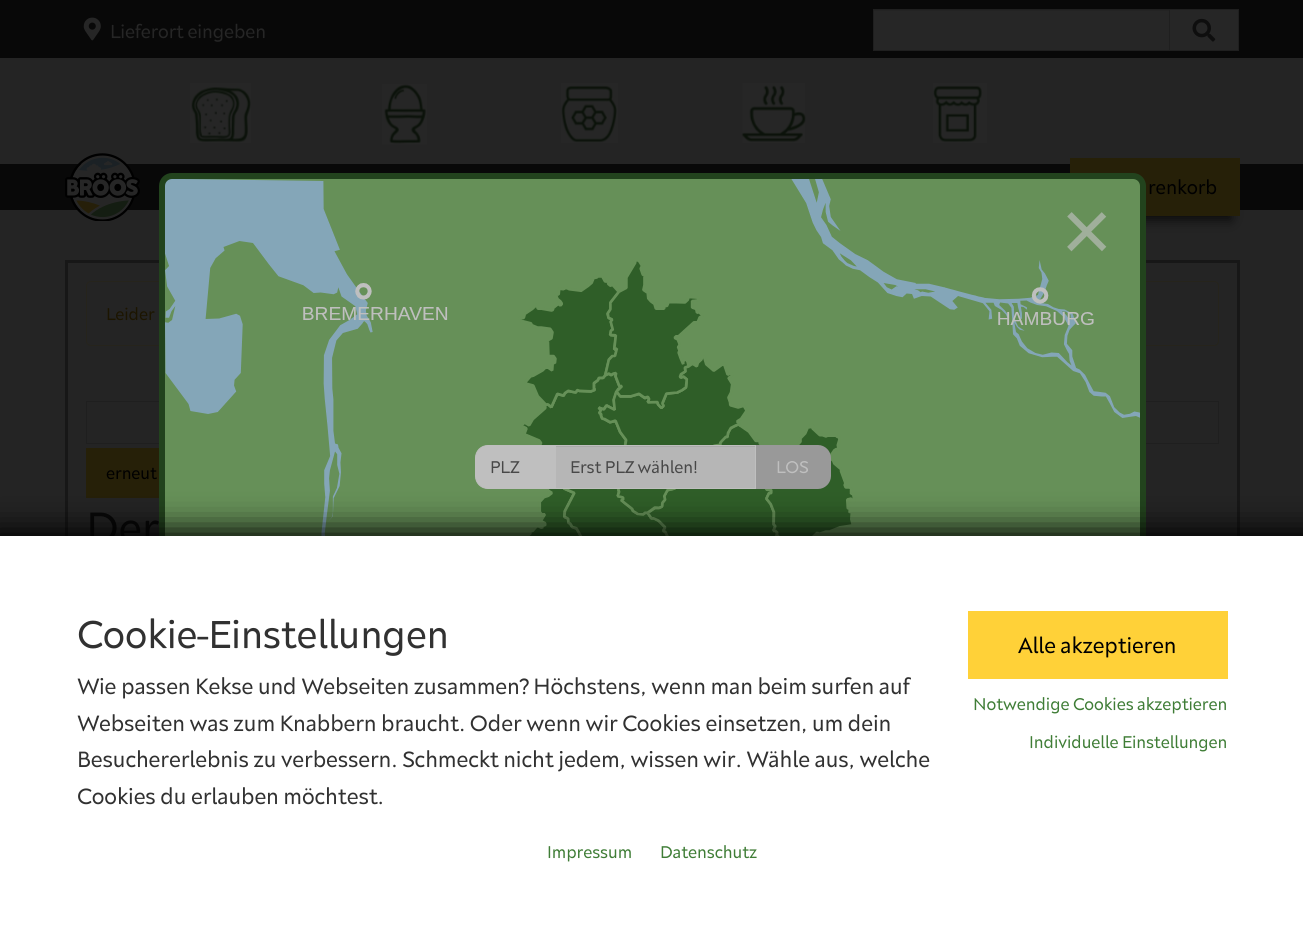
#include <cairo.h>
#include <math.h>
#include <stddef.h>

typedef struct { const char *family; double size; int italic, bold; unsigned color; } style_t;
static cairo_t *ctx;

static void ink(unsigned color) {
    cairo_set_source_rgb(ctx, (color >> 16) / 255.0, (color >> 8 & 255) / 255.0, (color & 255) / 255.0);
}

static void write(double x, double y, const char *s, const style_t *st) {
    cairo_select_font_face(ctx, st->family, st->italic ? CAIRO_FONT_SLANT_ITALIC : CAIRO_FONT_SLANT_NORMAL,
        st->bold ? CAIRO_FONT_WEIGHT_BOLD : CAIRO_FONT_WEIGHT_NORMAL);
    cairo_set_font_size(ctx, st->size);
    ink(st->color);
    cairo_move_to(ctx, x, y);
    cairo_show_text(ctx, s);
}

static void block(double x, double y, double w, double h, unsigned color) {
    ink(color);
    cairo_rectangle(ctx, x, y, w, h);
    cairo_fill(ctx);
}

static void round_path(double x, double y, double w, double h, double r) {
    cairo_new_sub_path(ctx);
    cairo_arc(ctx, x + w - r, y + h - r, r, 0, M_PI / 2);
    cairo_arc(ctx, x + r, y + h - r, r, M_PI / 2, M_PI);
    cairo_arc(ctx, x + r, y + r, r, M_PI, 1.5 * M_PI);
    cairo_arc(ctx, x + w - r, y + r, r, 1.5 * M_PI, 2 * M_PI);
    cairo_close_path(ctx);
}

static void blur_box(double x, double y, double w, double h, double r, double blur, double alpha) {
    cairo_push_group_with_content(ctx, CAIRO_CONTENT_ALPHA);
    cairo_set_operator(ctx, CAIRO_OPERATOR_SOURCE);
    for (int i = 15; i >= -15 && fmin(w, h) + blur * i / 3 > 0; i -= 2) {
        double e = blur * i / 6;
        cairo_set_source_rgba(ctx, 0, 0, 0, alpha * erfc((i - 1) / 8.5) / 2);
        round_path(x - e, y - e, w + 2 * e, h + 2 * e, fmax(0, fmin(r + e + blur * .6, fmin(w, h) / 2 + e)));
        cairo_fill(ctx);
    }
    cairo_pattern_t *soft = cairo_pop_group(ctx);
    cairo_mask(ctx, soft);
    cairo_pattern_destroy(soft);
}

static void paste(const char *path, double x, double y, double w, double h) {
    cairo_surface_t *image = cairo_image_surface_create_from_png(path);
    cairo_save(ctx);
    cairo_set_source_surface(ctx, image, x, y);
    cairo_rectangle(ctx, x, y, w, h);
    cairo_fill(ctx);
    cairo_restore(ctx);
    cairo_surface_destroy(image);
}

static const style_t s1 = {"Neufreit", 19.25, 0, 0, 0x262626};
static const style_t s2 = {"Neufreit", 20, 0, 0, 0x000000};
static const style_t s3 = {"Neufreit", 17.5, 0, 0, 0x1c1500};
static const style_t s4 = {"Neufreit", 17.5, 0, 0, 0x000000};
static const style_t s5 = {"Neufreit", 45, 0, 0, 0x080808};
static const style_t s6 = {"Liberation Sans", 88, 0, 0, 0xa0af9b};
static const style_t s7 = {"Neufreit", 17.5, 0, 0, 0x484848};
static const style_t s8 = {"Neufreit", 17.5, 0, 0, 0xbfbfbf};
static const style_t s9 = {"Neufreit", 40, 0, 0, 0x313131};
static const style_t s10 = {"Neufreit", 22.75, 0, 0, 0x313131};
static const style_t s11 = {"Neufreit", 22.5, 0, 0, 0x000000};
static const style_t s12 = {"Neufreit", 17.5, 0, 0, 0x3f7d36};

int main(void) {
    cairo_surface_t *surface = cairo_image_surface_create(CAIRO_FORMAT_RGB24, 1303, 938);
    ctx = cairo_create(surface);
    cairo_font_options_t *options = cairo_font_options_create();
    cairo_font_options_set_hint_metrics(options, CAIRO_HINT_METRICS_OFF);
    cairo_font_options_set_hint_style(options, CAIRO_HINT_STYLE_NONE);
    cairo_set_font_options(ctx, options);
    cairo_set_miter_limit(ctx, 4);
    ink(0x242424);
    cairo_paint(ctx);
    block(0, 0, 1303, 58, 0x080808);
    paste("pic1.png", 83, 17, 18, 24);
    write(110, 38, "Lieferort eingeben", &s1);
    block(874, 11, 295, 39, 0x262626);
    block(874, 10, 295, 1, 0x232323);
    cairo_rectangle(ctx, 873.5, 9.5, 296, 41);
    ink(0x1f1f1f);
    cairo_set_line_width(ctx, 1);
    cairo_stroke(ctx);
    block(1170, 10, 68, 40, 0x262626);
    block(1170, 9, 69, 1, 0x1f1f1f);
    block(1238, 9, 1, 42, 0x1f1f1f);
    block(1170, 50, 69, 1, 0x1f1f1f);
    paste("pic2.png", 1192, 18, 24, 24);
    paste("pic3.png", 190, 83, 61, 60);
    paste("pic4.png", 382, 84, 45, 61);
    paste("pic5.png", 561, 83, 57, 60);
    paste("pic6.png", 741, 83, 65, 60);
    paste("pic7.png", 933, 83, 54, 60);
    block(0, 164, 1303, 46, 0x080808);
    paste("pic8.png", 65, 153, 75, 68);
    ink(0x000000);
    blur_box(1079, 179, 152, 41, 0, 6, 0.7);
    block(1070, 158, 170, 58, 0x262008);
    write(1148, 194, "renkorb", &s2);
    cairo_rectangle(ctx, 66.5, 261.5, 1172, 322);
    ink(0x171717);
    cairo_set_line_width(ctx, 3);
    cairo_stroke(ctx);
    round_path(86.5, 281.5, 1132, 64, 4.5);
    ink(0x26241c);
    cairo_set_line_width(ctx, 1);
    cairo_stroke(ctx);
    write(106, 320, "Leider", &s3);
    cairo_rectangle(ctx, 86.5, 401.5, 1132, 42);
    ink(0x1f1f1f);
    cairo_stroke(ctx);
    block(86, 448, 73, 50, 0x262008);
    write(106, 479, "erneut", &s4);
    write(86, 543, "Der", &s5);
    paste("pic9.png", 165, 179, 975, 357);
    round_path(162, 176, 981, 587, 10);
    ink(0x22431d);
    cairo_set_line_width(ctx, 6);
    cairo_stroke(ctx);
    write(1061, 261, "×", &s6);
    ink(0xbfbfbf);
    cairo_new_path(ctx);
    cairo_move_to(ctx, 488, 445.5);
    cairo_line_to(ctx, 554.5, 445.5);
    cairo_line_to(ctx, 554.5, 488.5);
    cairo_line_to(ctx, 488, 488.5);
    cairo_curve_to(ctx, 481, 488.5, 475.5, 483, 475.5, 476);
    cairo_line_to(ctx, 475.5, 458);
    cairo_curve_to(ctx, 475.5, 451, 481, 445.5, 488, 445.5);
    cairo_close_path(ctx);
    cairo_fill_preserve(ctx);
    cairo_set_line_width(ctx, 1);
    cairo_stroke(ctx);
    write(490, 473, "PLZ", &s7);
    block(556, 447, 199, 41, 0xb6b6b6);
    block(556, 446, 199, 1, 0xa9a9a9);
    cairo_rectangle(ctx, 555.5, 445.5, 200, 43);
    ink(0xbfbfbf);
    cairo_stroke(ctx);
    write(570, 473, "Erst PLZ wählen!", &s7);
    ink(0x999999);
    cairo_new_path(ctx);
    cairo_move_to(ctx, 756, 445);
    cairo_line_to(ctx, 818, 445);
    cairo_curve_to(ctx, 825, 445, 831, 451, 831, 458);
    cairo_line_to(ctx, 831, 476);
    cairo_curve_to(ctx, 831, 483, 825, 489, 818, 489);
    cairo_line_to(ctx, 756, 489);
    cairo_close_path(ctx);
    cairo_fill(ctx);
    write(776, 473, "LOS", &s8);
    ink(0x000000);
    blur_box(-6, 530, 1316, 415, 0, 15.5, 1);
    block(0, 536, 1303, 402, 0xffffff);
    write(77, 648, "Cookie-Einstellungen", &s9);
    write(77, 694, "Wie passen Kekse und Webseiten zusammen? Höchstens, wenn man beim surfen auf", &s10);
    write(77, 731, "Webseiten was zum Knabbern braucht. Oder wenn wir Cookies einsetzen, um dein", &s10);
    write(77, 767, "Besuchererlebnis zu verbessern. Schmeckt nicht jedem, wissen wir. Wähle aus, welche", &s10);
    write(77, 804, "Cookies du erlauben möchtest.", &s10);
    block(968, 611, 260, 68, 0xffd138);
    write(1018, 653, "Alle akzeptieren", &s11);
    write(973, 710, "Notwendige Cookies akzeptieren", &s12);
    write(1029, 748, "Individuelle Einstellungen", &s12);
    write(547, 858, "Impressum", &s12);
    write(660, 858, "Datenschutz", &s12);
    cairo_surface_write_to_png(surface, "screenshot.png");
    cairo_font_options_destroy(options);
    cairo_destroy(ctx);
    cairo_surface_destroy(surface);
    return 0;
}
